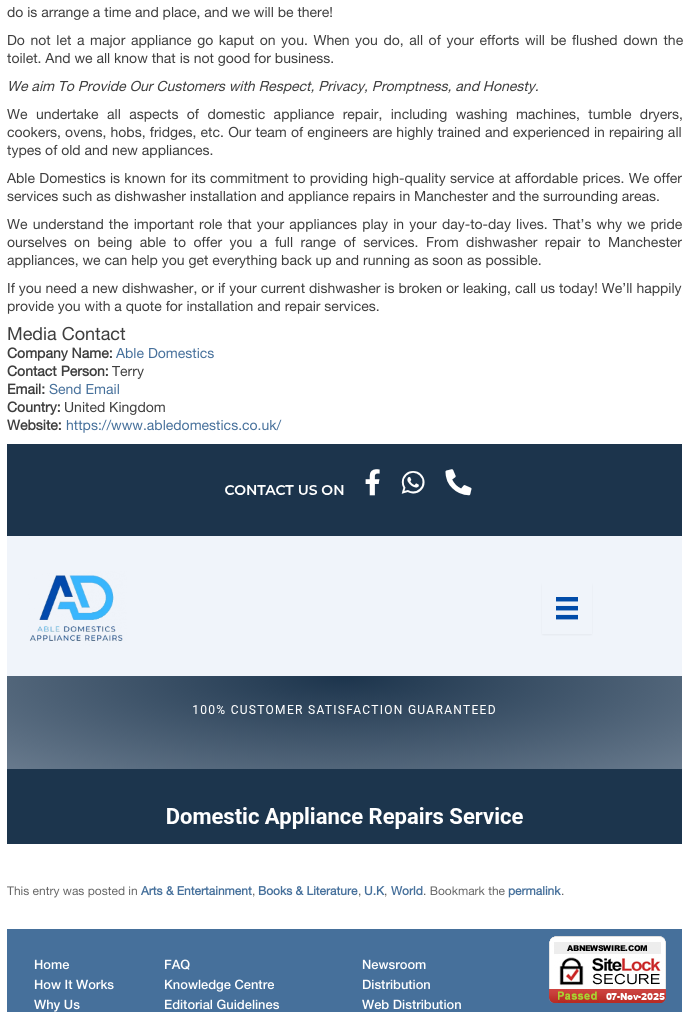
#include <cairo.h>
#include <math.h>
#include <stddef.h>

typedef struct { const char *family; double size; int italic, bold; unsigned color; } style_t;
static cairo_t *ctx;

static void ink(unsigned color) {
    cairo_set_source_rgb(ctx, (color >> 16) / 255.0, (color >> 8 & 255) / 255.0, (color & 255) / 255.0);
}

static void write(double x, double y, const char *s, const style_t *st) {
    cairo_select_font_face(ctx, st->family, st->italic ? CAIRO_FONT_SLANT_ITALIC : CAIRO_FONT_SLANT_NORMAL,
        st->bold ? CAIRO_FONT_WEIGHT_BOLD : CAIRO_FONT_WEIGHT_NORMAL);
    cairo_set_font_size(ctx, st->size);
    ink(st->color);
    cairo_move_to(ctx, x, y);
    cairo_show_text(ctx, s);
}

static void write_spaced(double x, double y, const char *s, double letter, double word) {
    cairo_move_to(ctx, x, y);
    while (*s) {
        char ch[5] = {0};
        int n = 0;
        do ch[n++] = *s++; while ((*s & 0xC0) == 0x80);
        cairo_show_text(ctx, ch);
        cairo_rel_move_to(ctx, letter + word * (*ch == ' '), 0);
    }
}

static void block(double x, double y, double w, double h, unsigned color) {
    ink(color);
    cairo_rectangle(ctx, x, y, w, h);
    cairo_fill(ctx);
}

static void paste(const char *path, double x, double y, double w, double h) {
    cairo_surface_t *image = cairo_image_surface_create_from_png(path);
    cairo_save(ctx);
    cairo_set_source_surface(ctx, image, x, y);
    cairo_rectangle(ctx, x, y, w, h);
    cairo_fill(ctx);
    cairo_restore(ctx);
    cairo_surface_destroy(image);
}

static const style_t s1 = {"Helvetica Neue", 14, 0, 0, 0x3e3e3e};
static const style_t s2 = {"Helvetica Neue", 14, 1, 0, 0x3e3e3e};
static const style_t s3 = {"Helvetica Neue", 18, 0, 0, 0x3e3e3e};
static const style_t s4 = {"Helvetica Neue", 14, 0, 1, 0x3e3e3e};
static const style_t s5 = {"Helvetica Neue", 14, 0, 0, 0x46709b};
static const style_t s6 = {"Helvetica Neue", 12, 0, 0, 0x666666};
static const style_t s7 = {"Helvetica Neue", 12, 0, 1, 0x46709b};
static const style_t s8 = {"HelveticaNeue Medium", 12.9, 0, 0, 0xffffff};

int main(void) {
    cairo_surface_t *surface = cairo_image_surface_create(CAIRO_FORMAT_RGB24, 689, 1012);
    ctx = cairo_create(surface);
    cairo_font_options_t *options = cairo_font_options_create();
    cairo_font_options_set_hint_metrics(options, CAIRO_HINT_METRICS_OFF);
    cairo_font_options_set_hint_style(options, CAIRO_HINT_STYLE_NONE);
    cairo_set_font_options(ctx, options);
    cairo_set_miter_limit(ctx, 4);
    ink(0xffffff);
    cairo_paint(ctx);
    write(7, 17, "do is arrange a time and place, and we will be there!", &s1);
    write_spaced(7, 45, "Do not let a major appliance go kaput on you. When you do, all of your efforts will be flushed down the", 0, 1.7);
    write(7, 63, "toilet. And we all know that is not good for business.", &s1);
    write(7, 91, "We aim To Provide Our Customers with Respect, Privacy, Promptness, and Honesty.", &s2);
    cairo_select_font_face(ctx, "Helvetica Neue", CAIRO_FONT_SLANT_NORMAL, CAIRO_FONT_WEIGHT_NORMAL);
    write_spaced(7, 119, "We undertake all aspects of domestic appliance repair, including washing machines, tumble dryers,", 0, 4.5);
    write_spaced(7, 137, "cookers, ovens, hobs, fridges, etc. Our team of engineers are highly trained and experienced in repairing all", 0, 0.3);
    write(7, 155, "types of old and new appliances.", &s1);
    write_spaced(7, 183, "Able Domestics is known for its commitment to providing high-quality service at affordable prices. We offer", 0, 0.4);
    write(7, 201, "services such as dishwasher installation and appliance repairs in Manchester and the surrounding areas.", &s1);
    write_spaced(7, 229, "We understand the important role that your appliances play in your day-to-day lives. That’s why we pride", 0, 1.25);
    write_spaced(7, 247, "ourselves on being able to offer you a full range of services. From dishwasher repair to Manchester", 0, 3.6);
    write(7, 265, "appliances, we can help you get everything back up and running as soon as possible.", &s1);
    write_spaced(7, 293, "If you need a new dishwasher, or if your current dishwasher is broken or leaking, call us today! We’ll happily", 0, 0.1);
    write(7, 311, "provide you with a quote for installation and repair services.", &s1);
    write(7, 340, "Media Contact", &s3);
    write(7, 358, "Company Name:", &s4);
    write(116, 358, "Able Domestics", &s5);
    write(7, 376, "Contact Person:", &s4);
    write(112, 376, "Terry", &s1);
    write(7, 394, "Email:", &s4);
    write(49, 394, "Send Email", &s5);
    write(7, 412, "Country:", &s4);
    write(64, 412, "United Kingdom", &s1);
    write(7, 430, "Website:", &s4);
    write(66, 430, "https://www.abledomestics.co.uk/", &s5);
    paste("pic1.png", 7, 444, 675, 400);
    write(7, 895, "This entry was posted in", &s6);
    write(141, 895, "Arts & Entertainment", &s7);
    write(252, 895, ",", &s6);
    write(258, 895, "Books & Literature", &s7);
    write(358, 895, ",", &s6);
    write(364, 895, "U.K", &s7);
    write(384, 895, ",", &s6);
    write(391, 895, "World", &s7);
    write(423, 895, ". Bookmark the", &s6);
    write(508, 895, "permalink", &s7);
    write(561, 895, ".", &s6);
    block(7, 929, 675, 83, 0x46709b);
    write(34, 969, "Home", &s8);
    write(34, 989, "How It Works", &s8);
    write(34, 1009, "Why Us", &s8);
    write(164, 969, "FAQ", &s8);
    write(164, 989, "Knowledge Centre", &s8);
    write(164, 1009, "Editorial Guidelines", &s8);
    write(362, 969, "Newsroom", &s8);
    write(362, 989, "Distribution", &s8);
    write(362, 1009, "Web Distribution", &s8);
    paste("pic2.png", 549, 936, 117, 67);
    cairo_surface_write_to_png(surface, "screenshot.png");
    cairo_font_options_destroy(options);
    cairo_destroy(ctx);
    cairo_surface_destroy(surface);
    return 0;
}
